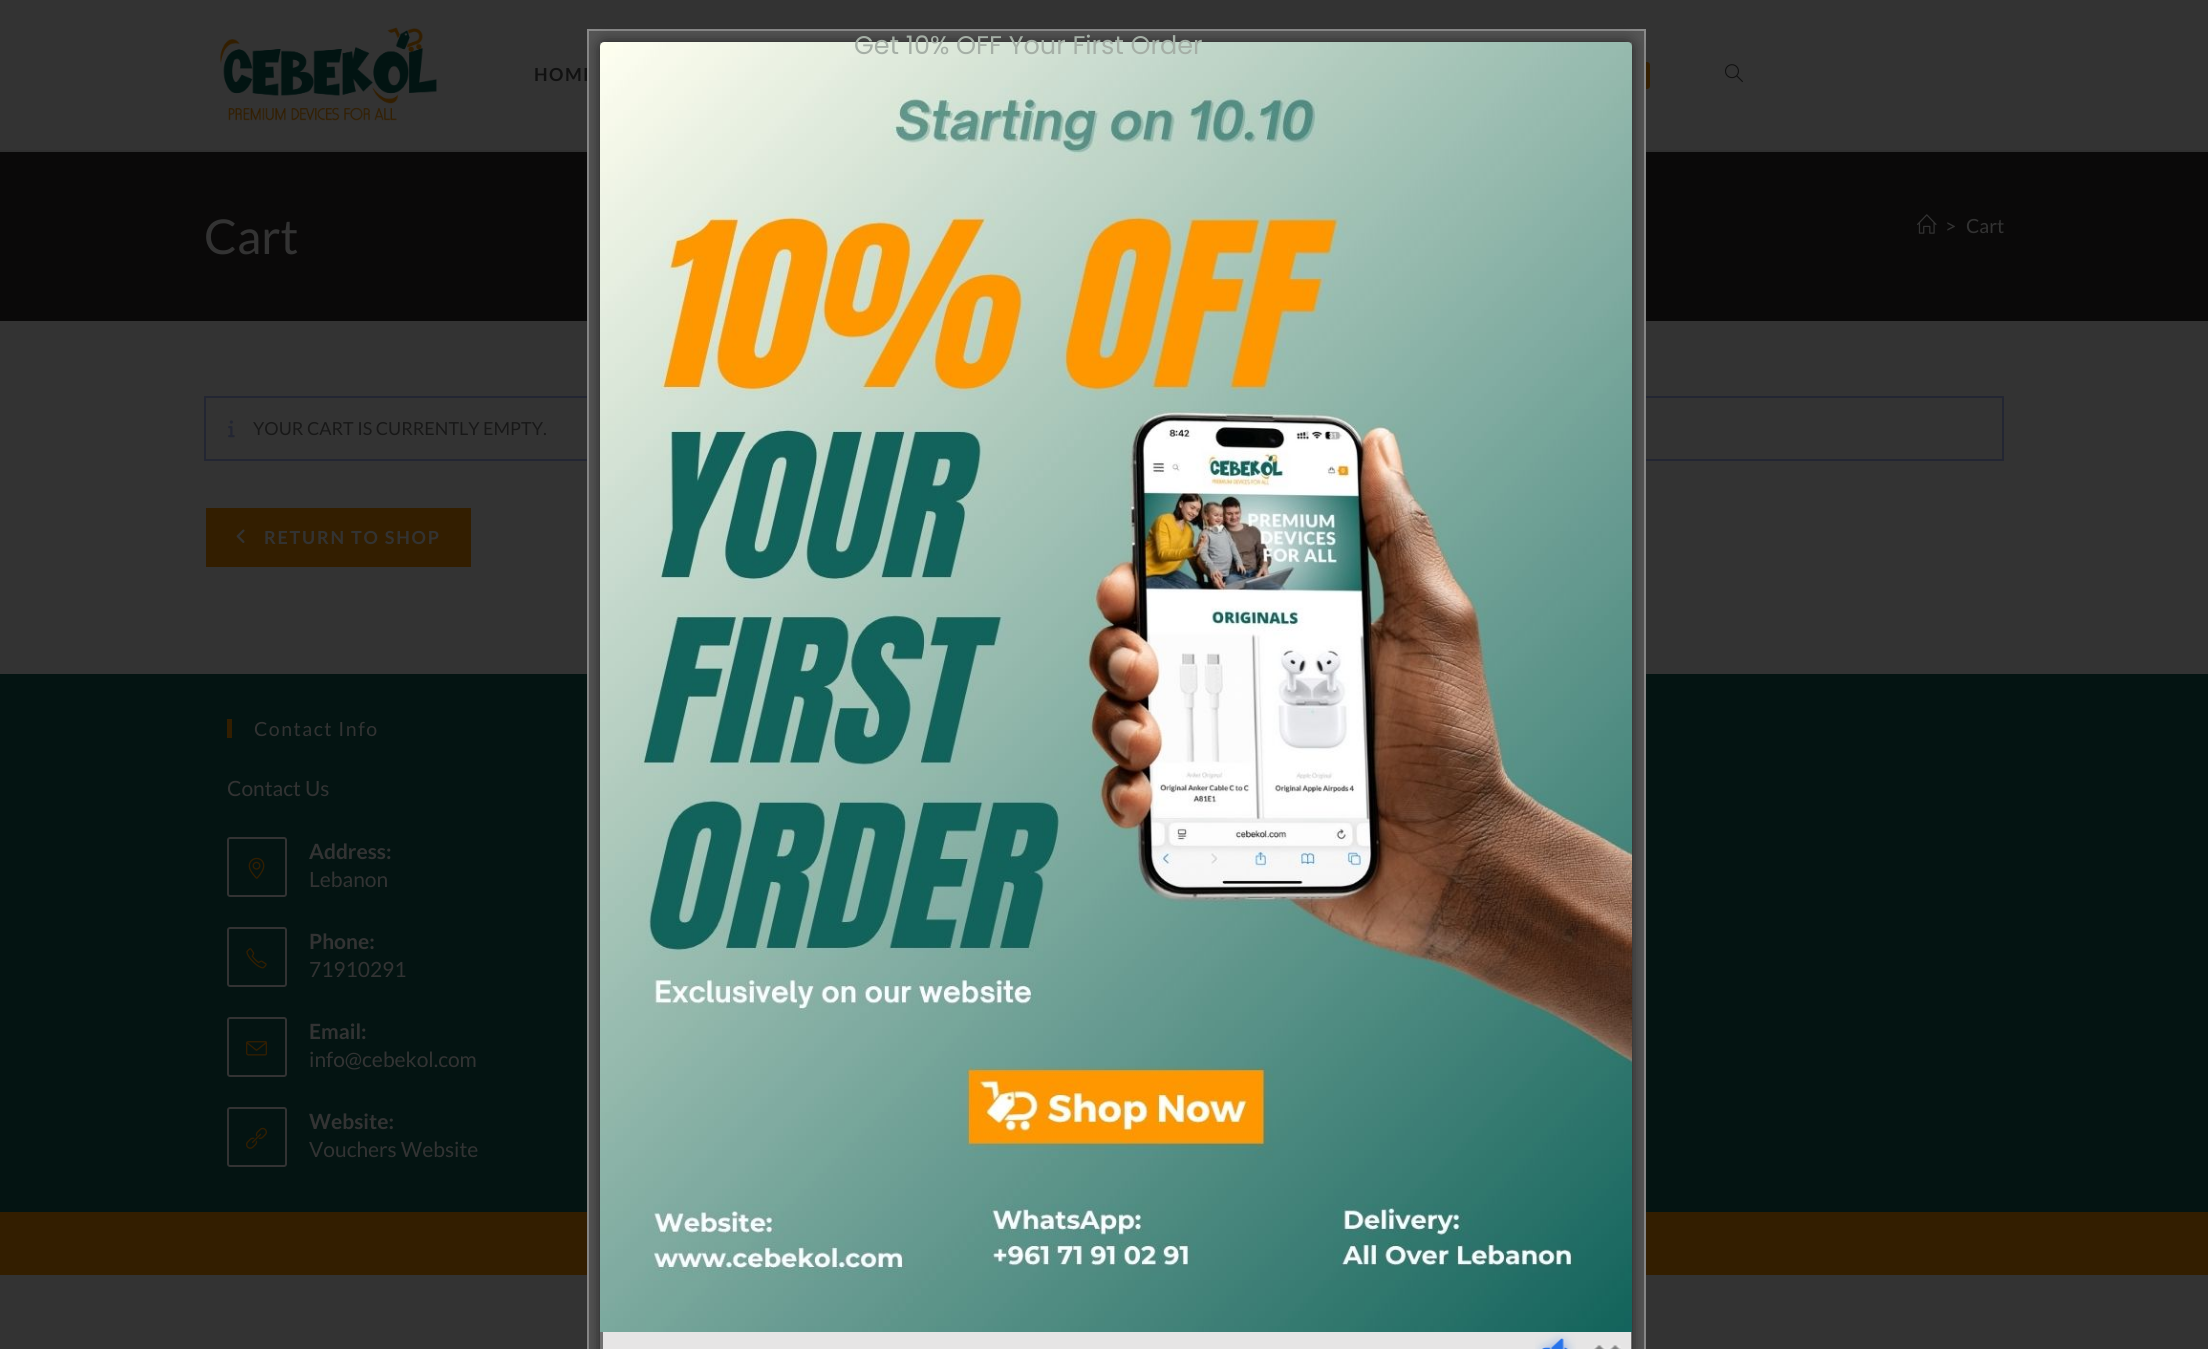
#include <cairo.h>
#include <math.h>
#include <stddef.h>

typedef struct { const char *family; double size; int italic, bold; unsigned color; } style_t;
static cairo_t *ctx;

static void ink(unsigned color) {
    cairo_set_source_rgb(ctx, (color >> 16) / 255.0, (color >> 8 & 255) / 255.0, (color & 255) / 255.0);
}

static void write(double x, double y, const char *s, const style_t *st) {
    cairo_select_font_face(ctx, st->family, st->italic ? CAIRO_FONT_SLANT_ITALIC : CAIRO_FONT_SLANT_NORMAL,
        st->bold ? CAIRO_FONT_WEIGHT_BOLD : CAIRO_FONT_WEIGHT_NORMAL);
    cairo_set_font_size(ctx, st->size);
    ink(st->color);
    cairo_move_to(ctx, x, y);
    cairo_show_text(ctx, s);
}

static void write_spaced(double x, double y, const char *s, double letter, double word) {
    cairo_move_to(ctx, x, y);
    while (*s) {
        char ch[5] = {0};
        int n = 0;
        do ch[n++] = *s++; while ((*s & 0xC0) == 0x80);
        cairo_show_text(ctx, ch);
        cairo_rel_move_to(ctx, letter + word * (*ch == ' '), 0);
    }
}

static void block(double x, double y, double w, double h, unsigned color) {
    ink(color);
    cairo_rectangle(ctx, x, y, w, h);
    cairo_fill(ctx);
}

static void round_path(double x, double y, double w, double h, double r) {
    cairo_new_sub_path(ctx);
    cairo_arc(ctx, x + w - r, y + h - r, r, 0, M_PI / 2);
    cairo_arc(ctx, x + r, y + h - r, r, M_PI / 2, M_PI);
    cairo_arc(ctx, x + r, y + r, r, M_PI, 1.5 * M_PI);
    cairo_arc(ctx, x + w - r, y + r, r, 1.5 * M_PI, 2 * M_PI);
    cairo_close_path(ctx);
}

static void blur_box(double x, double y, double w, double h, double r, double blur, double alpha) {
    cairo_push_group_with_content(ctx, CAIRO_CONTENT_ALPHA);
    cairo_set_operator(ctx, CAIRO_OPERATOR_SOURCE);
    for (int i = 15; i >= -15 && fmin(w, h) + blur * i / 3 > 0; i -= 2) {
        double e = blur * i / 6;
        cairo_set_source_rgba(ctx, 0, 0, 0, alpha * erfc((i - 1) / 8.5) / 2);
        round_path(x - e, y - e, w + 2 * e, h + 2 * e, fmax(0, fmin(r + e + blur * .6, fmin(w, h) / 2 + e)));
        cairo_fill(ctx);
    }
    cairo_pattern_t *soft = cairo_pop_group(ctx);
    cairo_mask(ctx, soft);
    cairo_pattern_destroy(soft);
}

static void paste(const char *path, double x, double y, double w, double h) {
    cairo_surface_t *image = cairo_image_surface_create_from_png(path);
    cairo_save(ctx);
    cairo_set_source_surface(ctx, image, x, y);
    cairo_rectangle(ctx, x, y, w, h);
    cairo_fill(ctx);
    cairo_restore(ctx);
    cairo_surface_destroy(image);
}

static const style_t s1 = {"Poppins", 25.5, 0, 0, 0xa5afa6};
static const style_t s2 = {"Lato", 48, 0, 0, 0x333333};
static const style_t s3 = {"Lato", 19.5, 0, 0, 0x333333};
static const style_t s4 = {"Lato", 18, 0, 0, 0x181818};
static const style_t s5 = {"Lato", 21, 0, 0, 0x333333};
static const style_t s6 = {"Lato", 21, 0, 1, 0x333333};

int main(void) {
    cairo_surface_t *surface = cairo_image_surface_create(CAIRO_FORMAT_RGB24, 2208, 1349);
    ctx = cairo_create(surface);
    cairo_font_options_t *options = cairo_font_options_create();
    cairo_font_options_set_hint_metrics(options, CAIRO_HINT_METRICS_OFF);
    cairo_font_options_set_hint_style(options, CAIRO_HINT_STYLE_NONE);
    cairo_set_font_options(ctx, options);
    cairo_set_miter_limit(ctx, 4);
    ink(0x333333);
    cairo_paint(ctx);
    block(0, 150, 2208, 2, 0x303030);
    cairo_select_font_face(ctx, "Lato", CAIRO_FONT_SLANT_NORMAL, CAIRO_FONT_WEIGHT_BOLD);
    cairo_set_font_size(ctx, 18);
    ink(0x111111);
    write_spaced(534, 81, "HOME", 1.5, 0);
    ink(0x331e00);
    round_path(1625, 62, 25, 27, 3);
    cairo_fill(ctx);
    block(0, 152, 2208, 169, 0x0a0909);
    cairo_rectangle(ctx, 205, 397, 1798, 63);
    ink(0x232633);
    cairo_stroke(ctx);
    block(0, 674, 2208, 538, 0x041412);
    block(0, 1212, 2208, 63, 0x331e00);
    ink(0x707070);
    cairo_rectangle(ctx, 594, 36, 1044, 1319);
    cairo_fill_preserve(ctx);
    ink(0x555555);
    cairo_set_line_width(ctx, 12);
    cairo_stroke(ctx);
    cairo_rectangle(ctx, 588, 30, 1057, 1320);
    ink(0x8a8a8a);
    cairo_set_line_width(ctx, 2);
    cairo_stroke(ctx);
    cairo_save(ctx);
    cairo_set_fill_rule(ctx, CAIRO_FILL_RULE_EVEN_ODD);
    cairo_new_path(ctx);
    cairo_move_to(ctx, 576, 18);
    cairo_line_to(ctx, 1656, 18);
    cairo_line_to(ctx, 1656, 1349);
    cairo_line_to(ctx, 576, 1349);
    cairo_close_path(ctx);
    cairo_move_to(ctx, 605, 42);
    cairo_line_to(ctx, 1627, 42);
    cairo_curve_to(ctx, 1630, 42, 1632, 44, 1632, 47);
    cairo_line_to(ctx, 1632, 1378);
    cairo_curve_to(ctx, 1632, 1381, 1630, 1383, 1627, 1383);
    cairo_line_to(ctx, 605, 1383);
    cairo_curve_to(ctx, 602, 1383, 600, 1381, 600, 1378);
    cairo_line_to(ctx, 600, 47);
    cairo_curve_to(ctx, 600, 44, 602, 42, 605, 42);
    cairo_close_path(ctx);
    cairo_clip(ctx);
    ink(0x222222);
    blur_box(600, 42, 1032, 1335, 5, 7.5, 1);
    cairo_restore(ctx);
    paste("pic1.png", 600, 42, 1032, 1290);
    block(603, 1332, 1028, 17, 0xe6e5e5);
    paste("pic2.png", 1535, 1333, 41, 16);
    paste("pic3.png", 1594, 1345, 27, 4);
    write(854, 54, "Get 10% OFF Your First Order", &s1);
    paste("pic4.png", 220, 27, 217, 94);
    paste("pic5.png", 1725, 64, 18, 19);
    write(204, 254, "Cart", &s2);
    paste("pic6.png", 1917, 214, 20, 20);
    write(1945, 233, ">", &s3);
    write(1966, 233, "Cart", &s3);
    paste("pic7.png", 228, 420, 7, 18);
    write(253, 435, "YOUR CART IS CURRENTLY EMPTY.", &s4);
    block(206, 508, 265, 59, 0x331e00);
    paste("pic8.png", 236, 529, 9, 14);
    cairo_select_font_face(ctx, "Lato", CAIRO_FONT_SLANT_NORMAL, CAIRO_FONT_WEIGHT_BOLD);
    ink(0x333333);
    write_spaced(264, 544, "RETURN TO SHOP", 1.75, 0);
    block(227, 719, 5, 19, 0x331e00);
    cairo_select_font_face(ctx, "Lato", CAIRO_FONT_SLANT_NORMAL, CAIRO_FONT_WEIGHT_NORMAL);
    cairo_set_font_size(ctx, 19.5);
    ink(0x333333);
    write_spaced(254, 736, "Contact Info", 1.5, 0);
    write(227, 796, "Contact Us", &s5);
    round_path(228, 838, 58, 58, 2);
    cairo_stroke(ctx);
    paste("pic9.png", 248, 857, 17, 22);
    write(309, 859, "Address:", &s6);
    write(309, 887, "Lebanon", &s5);
    round_path(228, 928, 58, 58, 2);
    cairo_stroke(ctx);
    paste("pic10.png", 246, 948, 21, 21);
    write(309, 949, "Phone:", &s6);
    write(309, 977, "71910291", &s5);
    round_path(228, 1018, 58, 58, 2);
    cairo_stroke(ctx);
    paste("pic11.png", 246, 1041, 21, 15);
    write(309, 1039, "Email:", &s6);
    write(309, 1067, "info@cebekol.com", &s5);
    round_path(228, 1108, 58, 58, 2);
    cairo_stroke(ctx);
    paste("pic12.png", 246, 1127, 21, 22);
    write(309, 1129, "Website:", &s6);
    write(309, 1157, "Vouchers Website", &s5);
    cairo_surface_write_to_png(surface, "screenshot.png");
    cairo_font_options_destroy(options);
    cairo_destroy(ctx);
    cairo_surface_destroy(surface);
    return 0;
}
